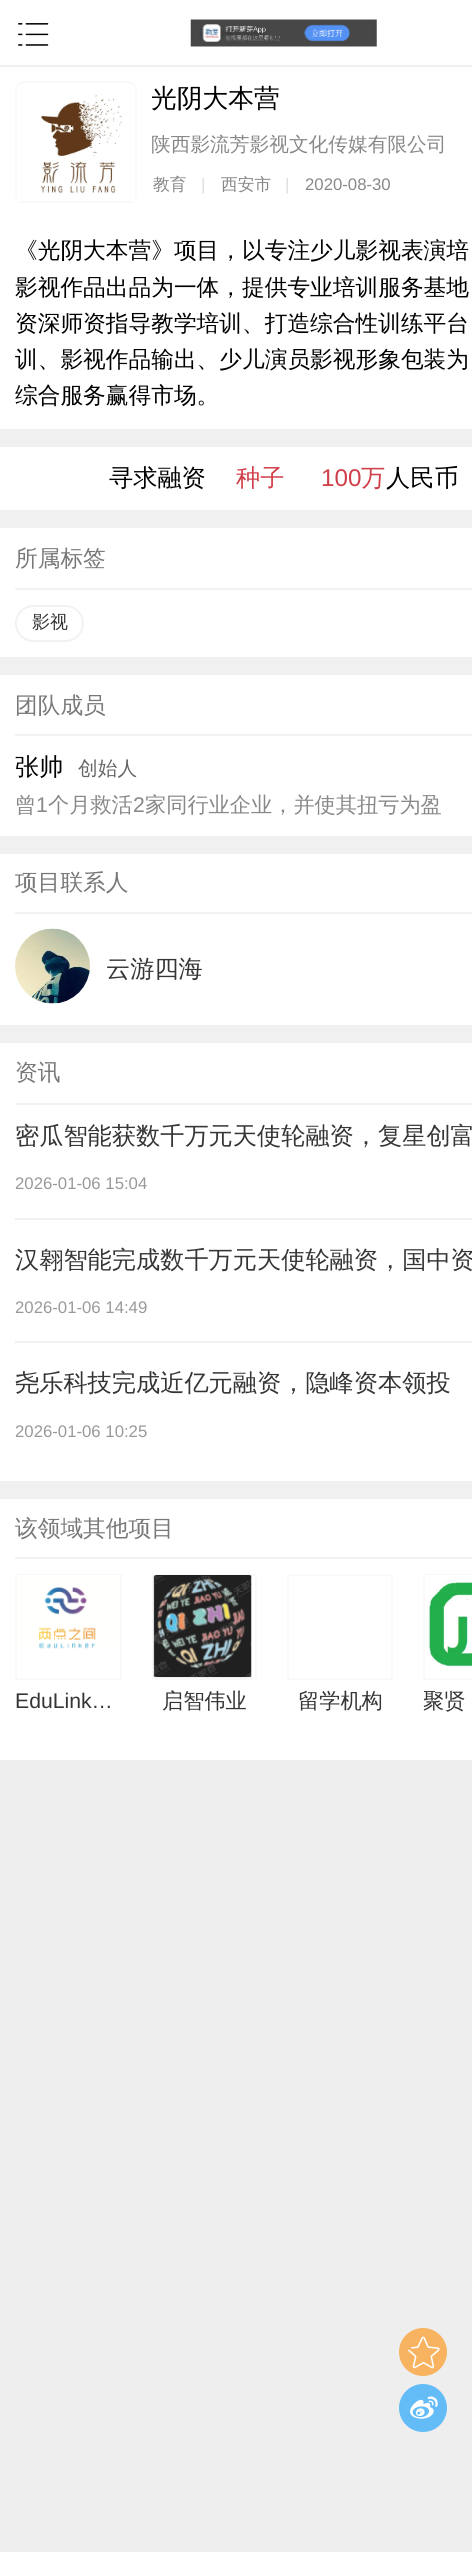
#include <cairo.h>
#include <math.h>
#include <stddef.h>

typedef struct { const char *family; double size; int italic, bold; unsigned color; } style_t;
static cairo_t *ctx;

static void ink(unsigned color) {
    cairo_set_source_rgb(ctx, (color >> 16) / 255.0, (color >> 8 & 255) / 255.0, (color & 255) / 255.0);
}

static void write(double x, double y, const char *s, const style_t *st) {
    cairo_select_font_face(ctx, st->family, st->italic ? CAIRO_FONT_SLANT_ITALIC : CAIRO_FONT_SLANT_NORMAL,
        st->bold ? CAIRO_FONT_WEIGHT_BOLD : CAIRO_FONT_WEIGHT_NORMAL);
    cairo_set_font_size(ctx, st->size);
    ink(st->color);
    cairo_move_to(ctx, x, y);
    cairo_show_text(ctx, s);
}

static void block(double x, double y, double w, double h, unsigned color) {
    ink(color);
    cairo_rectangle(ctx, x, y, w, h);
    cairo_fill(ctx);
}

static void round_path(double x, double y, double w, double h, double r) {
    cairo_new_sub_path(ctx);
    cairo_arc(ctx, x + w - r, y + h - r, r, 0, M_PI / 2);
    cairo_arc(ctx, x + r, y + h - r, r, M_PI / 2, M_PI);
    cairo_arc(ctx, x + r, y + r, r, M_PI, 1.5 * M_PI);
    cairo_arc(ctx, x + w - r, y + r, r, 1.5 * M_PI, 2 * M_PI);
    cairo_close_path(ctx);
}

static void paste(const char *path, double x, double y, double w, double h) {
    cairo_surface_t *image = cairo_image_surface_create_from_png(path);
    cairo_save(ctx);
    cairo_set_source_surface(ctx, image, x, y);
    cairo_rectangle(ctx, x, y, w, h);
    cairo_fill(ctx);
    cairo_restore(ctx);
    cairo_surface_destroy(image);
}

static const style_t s1 = {"WenQuanYi Zen Hei Medium", 25.75, 0, 0, 0x000000};
static const style_t s2 = {"WenQuanYi Zen Hei Medium", 19.7, 0, 0, 0x888888};
static const style_t s3 = {"WenQuanYi Zen Hei Medium", 16.75, 0, 0, 0x888888};
static const style_t s4 = {"Liberation Sans", 16.75, 0, 0, 0xdddddd};
static const style_t s5 = {"Liberation Sans", 16.75, 0, 0, 0x888888};
static const style_t s6 = {"WenQuanYi Zen Hei Medium", 22.7, 0, 0, 0x000000};
static const style_t s7 = {"WenQuanYi Zen Hei Medium", 24.2, 0, 0, 0x000000};
static const style_t s8 = {"WenQuanYi Zen Hei Medium", 24.2, 0, 0, 0xd03e49};
static const style_t s9 = {"Liberation Sans", 24.2, 0, 0, 0xd03e49};
static const style_t s10 = {"WenQuanYi Zen Hei Medium", 22.7, 0, 0, 0x787878};
static const style_t s11 = {"WenQuanYi Zen Hei Medium", 18, 0, 0, 0x353535};
static const style_t s12 = {"WenQuanYi Zen Hei Medium", 19.7, 0, 0, 0x666666};
static const style_t s13 = {"WenQuanYi Zen Hei Medium", 21.2, 0, 0, 0x888888};
static const style_t s14 = {"Liberation Sans", 21.2, 0, 0, 0x888888};
static const style_t s15 = {"WenQuanYi Zen Hei Medium", 24.2, 0, 0, 0x353535};
static const style_t s16 = {"Liberation Sans", 16.75, 0, 0, 0x999999};
static const style_t s17 = {"Liberation Sans", 21.2, 0, 0, 0x353535};
static const style_t s18 = {"WenQuanYi Zen Hei Medium", 21.2, 0, 0, 0x353535};

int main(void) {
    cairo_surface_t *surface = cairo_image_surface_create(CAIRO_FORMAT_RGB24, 472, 2552);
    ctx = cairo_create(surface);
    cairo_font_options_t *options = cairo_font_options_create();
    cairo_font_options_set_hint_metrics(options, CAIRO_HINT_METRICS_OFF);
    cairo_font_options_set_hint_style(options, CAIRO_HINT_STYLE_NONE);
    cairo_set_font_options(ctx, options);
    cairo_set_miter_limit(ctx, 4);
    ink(0xeeeeee);
    cairo_paint(ctx);
    block(0, 0, 472, 1760, 0xffffff);
    block(0, 65, 472, 2, 0xefefef);
    paste("pic1.png", 18, 23, 31, 23);
    paste("pic2.png", 190, 19, 187, 28);
    round_path(16, 82, 120, 120, 8);
    ink(0xf9f9f9);
    cairo_stroke(ctx);
    paste("pic3.png", 17, 86, 118, 115);
    write(151, 107, "光阴大本营", &s1);
    write(151, 151, "陕西影流芳影视文化传媒有限公司", &s2);
    write(153, 190, "教育", &s3);
    write(201, 190, "|", &s4);
    write(221, 190, "西安市", &s3);
    write(285, 190, "|", &s4);
    write(305, 190, "2020-08-30", &s5);
    write(15, 258, "《光阴大本营》项目，以专注少儿影视表演培", &s6);
    write(15, 295, "影视作品出品为一体，提供专业培训服务基地", &s6);
    write(15, 331, "资深师资指导教学培训、打造综合性训练平台", &s6);
    write(15, 367, "训、影视作品输出、少儿演员影视形象包装为", &s6);
    write(15, 403, "综合服务赢得市场。", &s6);
    block(0, 429, 472, 18, 0xf0f0f0);
    write(109, 486, "寻求融资", &s7);
    write(236, 486, "种子", &s8);
    write(321, 486, "100", &s9);
    write(361, 486, "万", &s8);
    write(386, 486, "人民币", &s7);
    block(0, 510, 472, 18, 0xf0f0f0);
    block(15, 588, 457, 2, 0xf2f2f2);
    write(15, 566, "所属标签", &s10);
    round_path(16, 606, 67, 35, 17.5);
    ink(0xf2f2f2);
    cairo_stroke(ctx);
    write(32, 628, "影视", &s11);
    block(0, 657, 472, 18, 0xf0f0f0);
    block(15, 734, 457, 2, 0xf2f2f2);
    write(15, 713, "团队成员", &s10);
    write(15, 775, "张帅", &s7);
    write(78, 775, "创始人", &s12);
    write(15, 812, "曾", &s13);
    write(36, 812, "1", &s14);
    write(48, 812, "个月救活", &s13);
    write(133, 812, "2", &s14);
    write(145, 812, "家同行业企业，并使其扭亏为盈", &s13);
    block(0, 836, 472, 18, 0xf0f0f0);
    block(15, 912, 457, 2, 0xf2f2f2);
    write(15, 890, "项目联系人", &s10);
    paste("pic4.png", 15, 928, 75, 76);
    write(106, 977, "云游四海", &s15);
    block(0, 1025, 472, 18, 0xf0f0f0);
    block(15, 1103, 457, 2, 0xf2f2f2);
    write(15, 1080, "资讯", &s10);
    block(15, 1218, 457, 2, 0xf0f0f0);
    write(15, 1144, "密瓜智能获数千万元天使轮融资，复星创富", &s15);
    write(15, 1189, "2026-01-06 15:04", &s16);
    block(15, 1341, 457, 2, 0xf0f0f0);
    write(15, 1268, "汉翱智能完成数千万元天使轮融资，国中资", &s15);
    write(15, 1313, "2026-01-06 14:49", &s16);
    write(15, 1391, "尧乐科技完成近亿元融资，隐峰资本领投", &s15);
    write(15, 1437, "2026-01-06 10:25", &s16);
    block(0, 1481, 472, 18, 0xf0f0f0);
    block(15, 1557, 457, 2, 0xf2f2f2);
    write(15, 1536, "该领域其他项目", &s10);
    cairo_rectangle(ctx, 16, 1575, 105, 104);
    ink(0xf9f9f9);
    cairo_stroke(ctx);
    paste("pic5.png", 17, 1575, 103, 74);
    write(15, 1708, "EduLink…", &s17);
    cairo_rectangle(ctx, 153, 1575, 103, 104);
    ink(0xf9f9f9);
    cairo_stroke(ctx);
    paste("pic6.png", 153, 1575, 99, 103);
    write(162, 1708, "启智伟业", &s18);
    cairo_rectangle(ctx, 288, 1575, 104, 104);
    ink(0xf9f9f9);
    cairo_stroke(ctx);
    write(298, 1708, "留学机构", &s18);
    cairo_rectangle(ctx, 424, 1575, 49, 104);
    ink(0xf9f9f9);
    cairo_stroke(ctx);
    paste("pic7.png", 425, 1575, 47, 93);
    write(423, 1708, "聚贤", &s18);
    ink(0xf8b360);
    cairo_new_path(ctx);
    cairo_arc(ctx, 423, 2352, 24, 0, 2 * M_PI);
    cairo_fill(ctx);
    paste("pic8.png", 408, 2336, 32, 33);
    ink(0x64bcf7);
    cairo_arc(ctx, 423, 2408, 24, 0, 2 * M_PI);
    cairo_fill(ctx);
    paste("pic9.png", 410, 2396, 28, 23);
    cairo_surface_write_to_png(surface, "screenshot.png");
    cairo_font_options_destroy(options);
    cairo_destroy(ctx);
    cairo_surface_destroy(surface);
    return 0;
}
